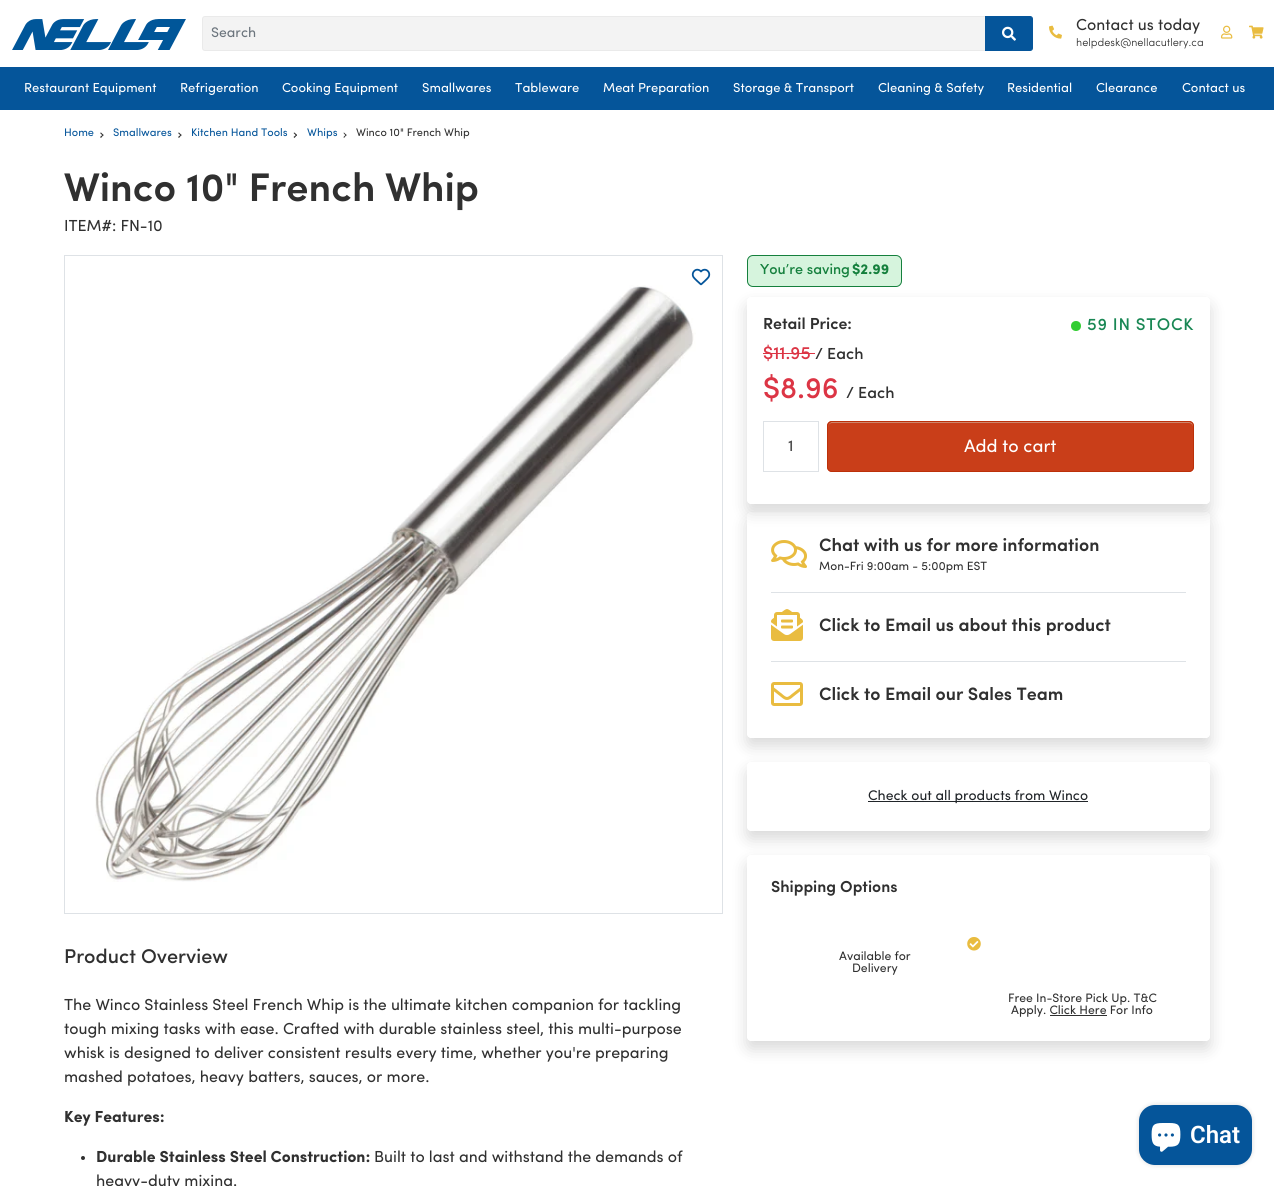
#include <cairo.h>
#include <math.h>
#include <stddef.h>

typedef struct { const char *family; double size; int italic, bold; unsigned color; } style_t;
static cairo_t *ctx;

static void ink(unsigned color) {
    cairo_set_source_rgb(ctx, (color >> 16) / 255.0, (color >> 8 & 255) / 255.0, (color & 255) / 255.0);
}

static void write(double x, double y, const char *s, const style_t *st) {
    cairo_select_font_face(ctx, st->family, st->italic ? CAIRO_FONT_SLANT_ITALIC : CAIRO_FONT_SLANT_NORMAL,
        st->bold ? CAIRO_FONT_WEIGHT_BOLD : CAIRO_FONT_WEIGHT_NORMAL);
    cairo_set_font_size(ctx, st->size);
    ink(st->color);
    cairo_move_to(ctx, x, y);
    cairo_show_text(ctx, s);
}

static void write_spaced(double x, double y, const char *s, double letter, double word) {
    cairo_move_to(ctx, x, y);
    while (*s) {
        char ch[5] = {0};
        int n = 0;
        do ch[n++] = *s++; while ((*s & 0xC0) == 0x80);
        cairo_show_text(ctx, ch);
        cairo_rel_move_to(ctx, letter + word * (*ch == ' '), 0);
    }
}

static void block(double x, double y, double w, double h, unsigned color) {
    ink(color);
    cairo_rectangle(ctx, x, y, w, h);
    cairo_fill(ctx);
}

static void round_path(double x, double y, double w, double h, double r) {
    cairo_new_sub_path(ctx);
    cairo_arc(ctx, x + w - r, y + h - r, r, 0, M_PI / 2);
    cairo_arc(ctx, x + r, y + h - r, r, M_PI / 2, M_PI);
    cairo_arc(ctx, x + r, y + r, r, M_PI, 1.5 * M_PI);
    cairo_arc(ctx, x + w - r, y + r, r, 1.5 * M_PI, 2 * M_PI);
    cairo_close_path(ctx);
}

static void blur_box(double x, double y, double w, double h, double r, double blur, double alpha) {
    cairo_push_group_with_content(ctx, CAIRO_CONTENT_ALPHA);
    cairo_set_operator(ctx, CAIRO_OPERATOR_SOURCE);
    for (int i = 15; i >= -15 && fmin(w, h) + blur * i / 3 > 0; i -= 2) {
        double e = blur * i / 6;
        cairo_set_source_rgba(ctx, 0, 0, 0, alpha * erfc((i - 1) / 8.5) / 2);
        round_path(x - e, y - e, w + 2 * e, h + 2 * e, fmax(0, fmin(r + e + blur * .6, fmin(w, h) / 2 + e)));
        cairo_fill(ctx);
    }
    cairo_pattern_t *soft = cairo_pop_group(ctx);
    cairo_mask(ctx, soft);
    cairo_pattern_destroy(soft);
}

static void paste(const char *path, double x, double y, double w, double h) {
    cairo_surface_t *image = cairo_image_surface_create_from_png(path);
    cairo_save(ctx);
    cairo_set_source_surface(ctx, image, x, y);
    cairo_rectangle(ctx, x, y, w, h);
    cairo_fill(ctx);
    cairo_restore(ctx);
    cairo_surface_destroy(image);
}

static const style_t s1 = {"Sofia", 14, 0, 0, 0x6c757d};
static const style_t s2 = {"Sofia", 16, 0, 0, 0x303030};
static const style_t s3 = {"Sofia Light", 11, 0, 0, 0x303030};
static const style_t s4 = {"Sofia", 13, 0, 0, 0xffffff};
static const style_t s5 = {"Sofia", 11, 0, 0, 0x05559a};
static const style_t s6 = {"Sofia", 11, 0, 0, 0x303030};
static const style_t s7 = {"Sofia SemiBold", 40, 0, 0, 0x303030};
static const style_t s8 = {"Sofia Medium", 14.5, 0, 0, 0x15803d};
static const style_t s9 = {"Sofia", 14.5, 0, 1, 0x15803d};
static const style_t s10 = {"Sofia SemiBold", 16, 0, 0, 0x303030};
static const style_t s11 = {"Sofia Medium", 18, 0, 0, 0xdc3545};
static const style_t s12 = {"Sofia Medium", 16, 0, 0, 0x303030};
static const style_t s13 = {"Sofia Medium", 30, 0, 0, 0xdc3545};
static const style_t s14 = {"Sofia Medium", 16, 0, 0, 0x4f4f4f};
static const style_t s15 = {"Sofia", 18, 0, 0, 0xffffff};
static const style_t s16 = {"Sofia SemiBold", 18, 0, 0, 0x303030};
static const style_t s17 = {"Sofia", 12, 0, 0, 0x303030};
static const style_t s18 = {"Sofia", 14, 0, 0, 0x212529};
static const style_t s19 = {"Sofia", 12.25, 0, 0, 0x303030};
static const style_t s20 = {"Sofia Medium", 20, 0, 0, 0x303030};
static const style_t s21 = {"Sofia", 16, 0, 1, 0x303030};
static const style_t s22 = {"Roboto SemiBold", 24, 0, 0, 0xffffff};

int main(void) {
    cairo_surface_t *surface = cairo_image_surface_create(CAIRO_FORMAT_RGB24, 1274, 1186);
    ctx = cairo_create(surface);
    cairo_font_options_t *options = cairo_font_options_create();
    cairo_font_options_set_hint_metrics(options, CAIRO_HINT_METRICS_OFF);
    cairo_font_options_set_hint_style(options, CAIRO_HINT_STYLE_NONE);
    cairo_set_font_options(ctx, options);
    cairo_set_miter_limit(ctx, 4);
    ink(0xffffff);
    cairo_paint(ctx);
    paste("pic1.png", 12, 19, 174, 31);
    ink(0xf3f3f3);
    cairo_new_path(ctx);
    cairo_move_to(ctx, 205, 16.5);
    cairo_line_to(ctx, 985.5, 16.5);
    cairo_line_to(ctx, 985.5, 50.5);
    cairo_line_to(ctx, 205, 50.5);
    cairo_curve_to(ctx, 203.5, 50.5, 202.5, 49.5, 202.5, 48);
    cairo_line_to(ctx, 202.5, 19);
    cairo_curve_to(ctx, 202.5, 17.5, 203.5, 16.5, 205, 16.5);
    cairo_close_path(ctx);
    cairo_fill_preserve(ctx);
    ink(0xeaeaea);
    cairo_set_line_width(ctx, 1);
    cairo_stroke(ctx);
    write(211, 37, "Search", &s1);
    ink(0x05559a);
    cairo_new_path(ctx);
    cairo_move_to(ctx, 985.5, 16.5);
    cairo_line_to(ctx, 1030, 16.5);
    cairo_curve_to(ctx, 1031.5, 16.5, 1032.5, 17.5, 1032.5, 19);
    cairo_line_to(ctx, 1032.5, 48);
    cairo_curve_to(ctx, 1032.5, 49.5, 1031.5, 50.5, 1030, 50.5);
    cairo_line_to(ctx, 985.5, 50.5);
    cairo_close_path(ctx);
    cairo_fill_preserve(ctx);
    cairo_stroke(ctx);
    paste("pic2.png", 1002, 26, 14, 15);
    paste("pic3.png", 1049, 25, 13, 14);
    write(1076, 30, "Contact us today", &s2);
    write(1076, 46, "helpdesk@nellacutlery.ca", &s3);
    paste("pic4.png", 1221, 25, 12, 14);
    paste("pic5.png", 1249, 25, 15, 14);
    block(0, 67, 1274, 43, 0x05559a);
    write(24, 92, "Restaurant Equipment", &s4);
    write(180, 92, "Refrigeration", &s4);
    write(282, 92, "Cooking Equipment", &s4);
    write(422, 92, "Smallwares", &s4);
    write(515, 92, "Tableware", &s4);
    write(603, 92, "Meat Preparation", &s4);
    write(733, 92, "Storage & Transport", &s4);
    write(878, 92, "Cleaning & Safety", &s4);
    write(1007, 92, "Residential", &s4);
    write(1096, 92, "Clearance", &s4);
    write(1182, 92, "Contact us", &s4);
    write(64, 136, "Home", &s5);
    ink(0x303030);
    cairo_new_path(ctx);
    cairo_move_to(ctx, 101, 132.5);
    cairo_line_to(ctx, 103.5, 135);
    cairo_line_to(ctx, 103, 136);
    cairo_line_to(ctx, 100, 133);
    cairo_close_path(ctx);
    cairo_fill(ctx);
    cairo_new_path(ctx);
    cairo_move_to(ctx, 103, 134.5);
    cairo_line_to(ctx, 103.5, 135);
    cairo_line_to(ctx, 101, 138);
    cairo_line_to(ctx, 100, 137);
    cairo_close_path(ctx);
    cairo_fill(ctx);
    write(113, 136, "Smallwares", &s5);
    ink(0x303030);
    cairo_new_path(ctx);
    cairo_move_to(ctx, 179, 132.5);
    cairo_line_to(ctx, 181.5, 135);
    cairo_line_to(ctx, 181, 136);
    cairo_line_to(ctx, 178, 133);
    cairo_close_path(ctx);
    cairo_fill(ctx);
    cairo_new_path(ctx);
    cairo_move_to(ctx, 181, 134.5);
    cairo_line_to(ctx, 181.5, 135);
    cairo_line_to(ctx, 179, 138);
    cairo_line_to(ctx, 178, 137);
    cairo_close_path(ctx);
    cairo_fill(ctx);
    write(191, 136, "Kitchen Hand Tools", &s5);
    ink(0x303030);
    cairo_new_path(ctx);
    cairo_move_to(ctx, 294.5, 132.5);
    cairo_line_to(ctx, 297, 135);
    cairo_line_to(ctx, 296.5, 136);
    cairo_line_to(ctx, 293.5, 133);
    cairo_close_path(ctx);
    cairo_fill(ctx);
    write(307, 136, "Whips", &s5);
    ink(0x303030);
    cairo_new_path(ctx);
    cairo_move_to(ctx, 296.5, 134.5);
    cairo_line_to(ctx, 297, 135);
    cairo_line_to(ctx, 294.5, 138);
    cairo_line_to(ctx, 293.5, 137);
    cairo_close_path(ctx);
    cairo_move_to(ctx, 344, 132.5);
    cairo_line_to(ctx, 346.5, 135);
    cairo_line_to(ctx, 346, 136);
    cairo_line_to(ctx, 343.5, 133);
    cairo_close_path(ctx);
    cairo_fill(ctx);
    cairo_new_path(ctx);
    cairo_move_to(ctx, 346, 134.5);
    cairo_line_to(ctx, 346.5, 135);
    cairo_line_to(ctx, 344, 138);
    cairo_line_to(ctx, 343.5, 137);
    cairo_close_path(ctx);
    cairo_fill(ctx);
    write(356, 136, "Winco 10\" French Whip", &s6);
    write(64, 201, "Winco 10\" French Whip", &s7);
    write(64, 231, "ITEM#: FN-10", &s2);
    ink(0xd6f4dd);
    round_path(747.5, 255.5, 154, 31, 5.5);
    cairo_fill_preserve(ctx);
    ink(0x15803d);
    cairo_stroke(ctx);
    write(760, 274, "You’re saving", &s8);
    write(852, 274, "$2.99", &s9);
    cairo_rectangle(ctx, 64.5, 255.5, 658, 658);
    ink(0xdee2e6);
    cairo_stroke(ctx);
    cairo_save(ctx);
    cairo_set_fill_rule(ctx, CAIRO_FILL_RULE_EVEN_ODD);
    cairo_new_path(ctx);
    cairo_move_to(ctx, 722, 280);
    cairo_line_to(ctx, 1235, 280);
    cairo_line_to(ctx, 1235, 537);
    cairo_line_to(ctx, 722, 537);
    cairo_close_path(ctx);
    cairo_move_to(ctx, 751, 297);
    cairo_line_to(ctx, 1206, 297);
    cairo_curve_to(ctx, 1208, 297, 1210, 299, 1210, 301);
    cairo_line_to(ctx, 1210, 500);
    cairo_curve_to(ctx, 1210, 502, 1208, 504, 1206, 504);
    cairo_line_to(ctx, 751, 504);
    cairo_curve_to(ctx, 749, 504, 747, 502, 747, 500);
    cairo_line_to(ctx, 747, 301);
    cairo_curve_to(ctx, 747, 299, 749, 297, 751, 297);
    cairo_close_path(ctx);
    cairo_clip(ctx);
    ink(0x000000);
    blur_box(747, 305, 463, 207, 4, 8, 0.15);
    cairo_restore(ctx);
    write(763, 329, "Retail Price:", &s10);
    write(763, 359, "$11.95", &s11);
    write(815, 359, "/ Each", &s12);
    block(763, 353, 52, 1, 0xdc3545);
    write(763, 398, "$8.96", &s13);
    write(846, 398, "/ Each", &s12);
    ink(0x32cd32);
    cairo_new_path(ctx);
    cairo_arc(ctx, 1076, 326, 5, 0, 2 * M_PI);
    cairo_fill(ctx);
    cairo_set_font_size(ctx, 17);
    ink(0x198754);
    write_spaced(1087, 330, "59 IN STOCK", 0.75, 0);
    cairo_rectangle(ctx, 763.5, 421.5, 55, 50);
    ink(0xdee2e6);
    cairo_stroke(ctx);
    write(788, 451, "1", &s14);
    ink(0xc93e19);
    round_path(827, 421, 367, 51, 5);
    cairo_fill(ctx);
    ink(0xcf866c);
    cairo_new_path(ctx);
    cairo_move_to(ctx, 832, 423);
    cairo_line_to(ctx, 1189, 423);
    cairo_curve_to(ctx, 1191, 423, 1193, 425, 1193, 427);
    cairo_curve_to(ctx, 1193, 424, 1192, 422, 1189, 422);
    cairo_line_to(ctx, 831, 422);
    cairo_line_to(ctx, 829, 424);
    cairo_line_to(ctx, 828, 427);
    cairo_curve_to(ctx, 828, 425, 830, 423, 832, 423);
    cairo_close_path(ctx);
    cairo_fill(ctx);
    round_path(827.5, 421.5, 366, 50, 4.5);
    ink(0xbc3009);
    cairo_stroke(ctx);
    write(964, 452, "Add to cart", &s15);
    cairo_save(ctx);
    cairo_set_fill_rule(ctx, CAIRO_FILL_RULE_EVEN_ODD);
    cairo_new_path(ctx);
    cairo_move_to(ctx, 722, 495);
    cairo_line_to(ctx, 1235, 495);
    cairo_line_to(ctx, 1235, 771);
    cairo_line_to(ctx, 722, 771);
    cairo_close_path(ctx);
    cairo_move_to(ctx, 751, 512);
    cairo_line_to(ctx, 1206, 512);
    cairo_curve_to(ctx, 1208, 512, 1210, 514, 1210, 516);
    cairo_line_to(ctx, 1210, 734);
    cairo_curve_to(ctx, 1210, 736, 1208, 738, 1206, 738);
    cairo_line_to(ctx, 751, 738);
    cairo_curve_to(ctx, 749, 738, 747, 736, 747, 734);
    cairo_line_to(ctx, 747, 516);
    cairo_curve_to(ctx, 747, 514, 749, 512, 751, 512);
    cairo_close_path(ctx);
    cairo_clip(ctx);
    ink(0x000000);
    blur_box(747, 520, 463, 226, 4, 8, 0.15);
    cairo_restore(ctx);
    block(771, 592, 415, 1, 0xdee2e6);
    paste("pic6.png", 771, 540, 36, 28);
    write(819, 551, "Chat with us for more information", &s16);
    write(819, 570, "Mon-Fri 9:00am - 5:00pm EST", &s17);
    block(771, 661, 415, 1, 0xdee2e6);
    paste("pic7.png", 771, 609, 32, 32);
    write(819, 631, "Click to Email us about this product", &s16);
    paste("pic8.png", 771, 682, 32, 24);
    write(819, 700, "Click to Email our Sales Team", &s16);
    cairo_save(ctx);
    cairo_set_fill_rule(ctx, CAIRO_FILL_RULE_EVEN_ODD);
    cairo_new_path(ctx);
    cairo_move_to(ctx, 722, 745);
    cairo_line_to(ctx, 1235, 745);
    cairo_line_to(ctx, 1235, 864);
    cairo_line_to(ctx, 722, 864);
    cairo_close_path(ctx);
    cairo_move_to(ctx, 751, 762);
    cairo_line_to(ctx, 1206, 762);
    cairo_curve_to(ctx, 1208, 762, 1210, 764, 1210, 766);
    cairo_line_to(ctx, 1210, 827);
    cairo_curve_to(ctx, 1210, 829, 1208, 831, 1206, 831);
    cairo_line_to(ctx, 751, 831);
    cairo_curve_to(ctx, 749, 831, 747, 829, 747, 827);
    cairo_line_to(ctx, 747, 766);
    cairo_curve_to(ctx, 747, 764, 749, 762, 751, 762);
    cairo_close_path(ctx);
    cairo_clip(ctx);
    ink(0x000000);
    blur_box(747, 770, 463, 69, 4, 8, 0.15);
    cairo_restore(ctx);
    block(868, 801, 220, 1, 0x212529);
    write(868, 800, "Check out all products from Winco", &s18);
    cairo_save(ctx);
    cairo_set_fill_rule(ctx, CAIRO_FILL_RULE_EVEN_ODD);
    cairo_new_path(ctx);
    cairo_move_to(ctx, 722, 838);
    cairo_line_to(ctx, 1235, 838);
    cairo_line_to(ctx, 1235, 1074);
    cairo_line_to(ctx, 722, 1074);
    cairo_close_path(ctx);
    cairo_move_to(ctx, 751, 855);
    cairo_line_to(ctx, 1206, 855);
    cairo_curve_to(ctx, 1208, 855, 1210, 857, 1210, 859);
    cairo_line_to(ctx, 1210, 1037);
    cairo_curve_to(ctx, 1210, 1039, 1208, 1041, 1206, 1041);
    cairo_line_to(ctx, 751, 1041);
    cairo_curve_to(ctx, 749, 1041, 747, 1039, 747, 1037);
    cairo_line_to(ctx, 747, 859);
    cairo_curve_to(ctx, 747, 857, 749, 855, 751, 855);
    cairo_close_path(ctx);
    cairo_clip(ctx);
    ink(0x000000);
    blur_box(747, 863, 463, 186, 4, 8, 0.15);
    cairo_restore(ctx);
    write(771, 892, "Shipping Options", &s10);
    paste("pic9.png", 967, 937, 14, 14);
    write(839, 960, "Available for", &s19);
    write(852, 972, "Delivery", &s19);
    write(1008, 1002, "Free In-Store Pick Up. T&C", &s19);
    write(1011, 1014, "Apply. Click Here For Info", &s19);
    block(1050, 1015, 57, 1, 0x303030);
    paste("pic11.png", 95, 285, 601, 597);
    paste("pic10.png", 691, 268, 20, 18);
    write(64, 963, "Product Overview", &s20);
    write(64, 1010, "The Winco Stainless Steel French Whip is the ultimate kitchen companion for tackling", &s2);
    write(64, 1034, "tough mixing tasks with ease. Crafted with durable stainless steel, this multi-purpose", &s2);
    write(64, 1058, "whisk is designed to deliver consistent results every time, whether you're preparing", &s2);
    write(64, 1082, "mashed potatoes, heavy batters, sauces, or more.", &s2);
    write(64, 1122, "Key Features:", &s21);
    cairo_new_path(ctx);
    cairo_arc(ctx, 83, 1158, 2, 0, 2 * M_PI);
    cairo_fill(ctx);
    write(96, 1162, "Durable Stainless Steel Construction:", &s21);
    write(374, 1162, "Built to last and withstand the demands of", &s2);
    write(96, 1186, "heavy-duty mixing.", &s2);
    ink(0x000000);
    blur_box(1139, 1105, 113, 60, 16, 2.5, 0.15);
    ink(0x05559a);
    round_path(1139, 1105, 113, 60, 16);
    cairo_fill(ctx);
    paste("pic12.png", 1151, 1123, 30, 29);
    write(1190, 1143, "Chat", &s22);
    cairo_surface_write_to_png(surface, "screenshot.png");
    cairo_font_options_destroy(options);
    cairo_destroy(ctx);
    cairo_surface_destroy(surface);
    return 0;
}
